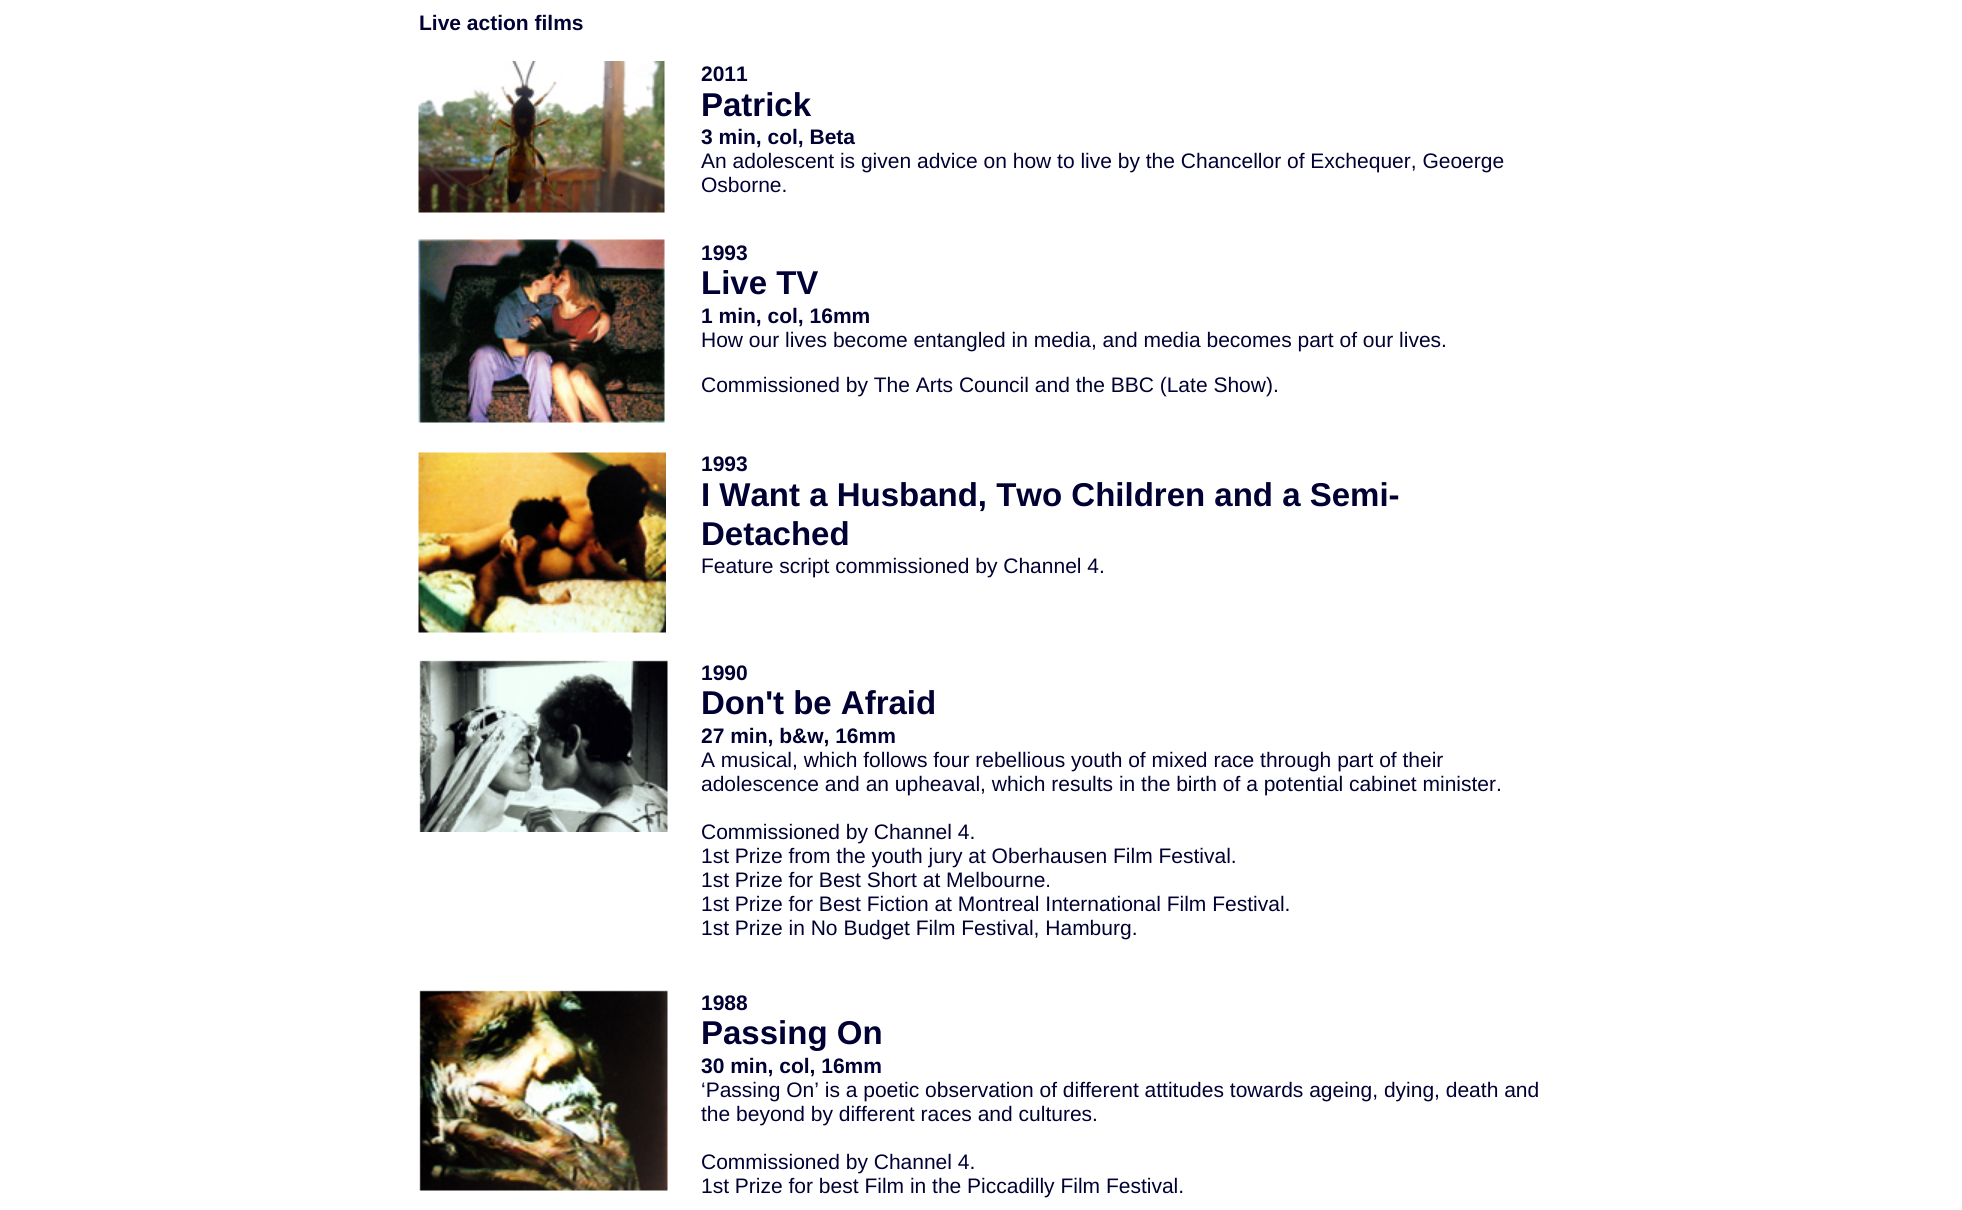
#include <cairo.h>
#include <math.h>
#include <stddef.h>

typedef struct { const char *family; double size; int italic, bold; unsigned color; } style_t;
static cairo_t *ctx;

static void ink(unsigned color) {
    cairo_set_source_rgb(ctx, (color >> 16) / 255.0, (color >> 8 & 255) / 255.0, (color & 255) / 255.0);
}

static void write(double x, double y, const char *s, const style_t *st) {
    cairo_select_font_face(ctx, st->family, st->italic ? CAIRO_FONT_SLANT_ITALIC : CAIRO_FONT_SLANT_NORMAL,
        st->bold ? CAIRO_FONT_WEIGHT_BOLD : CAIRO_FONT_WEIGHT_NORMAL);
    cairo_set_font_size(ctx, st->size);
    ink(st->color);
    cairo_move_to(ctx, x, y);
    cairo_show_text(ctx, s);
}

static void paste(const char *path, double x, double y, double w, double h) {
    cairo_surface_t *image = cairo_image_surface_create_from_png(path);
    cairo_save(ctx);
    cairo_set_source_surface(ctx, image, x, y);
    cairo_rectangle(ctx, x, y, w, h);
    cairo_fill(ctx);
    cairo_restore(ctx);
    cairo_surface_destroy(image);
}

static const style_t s1 = {"Liberation Sans", 21, 0, 1, 0x000033};
static const style_t s2 = {"Liberation Sans", 33, 0, 1, 0x000033};
static const style_t s3 = {"Liberation Sans", 21, 0, 0, 0x000033};

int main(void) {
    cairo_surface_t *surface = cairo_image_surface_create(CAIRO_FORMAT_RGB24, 1962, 1210);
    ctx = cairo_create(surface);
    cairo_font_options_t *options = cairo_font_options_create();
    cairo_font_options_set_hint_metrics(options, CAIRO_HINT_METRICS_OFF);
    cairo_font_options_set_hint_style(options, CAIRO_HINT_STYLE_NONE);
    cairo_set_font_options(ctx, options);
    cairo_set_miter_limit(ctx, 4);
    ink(0xffffff);
    cairo_paint(ctx);
    write(419, 30, "Live action films", &s1);
    paste("pic1.png", 418, 61, 247, 152);
    write(701, 81, "2011", &s1);
    write(701, 116, "Patrick", &s2);
    write(701, 144, "3 min, col, Beta", &s1);
    write(701, 168, "An adolescent is given advice on how to live by the Chancellor of Exchequer, Geoerge", &s3);
    write(701, 192, "Osborne.", &s3);
    paste("pic2.png", 418, 239, 247, 184);
    write(701, 260, "1993", &s1);
    write(701, 294, "Live TV", &s2);
    write(701, 323, "1 min, col, 16mm", &s1);
    write(701, 347, "How our lives become entangled in media, and media becomes part of our lives.", &s3);
    write(701, 392, "Commissioned by The Arts Council and the BBC (Late Show).", &s3);
    paste("pic3.png", 418, 452, 248, 181);
    write(701, 471, "1993", &s1);
    write(701, 506, "I Want a Husband, Two Children and a Semi-", &s2);
    write(701, 545, "Detached", &s2);
    write(701, 573, "Feature script commissioned by Channel 4.", &s3);
    paste("pic4.png", 419, 660, 249, 172);
    write(701, 680, "1990", &s1);
    write(701, 714, "Don't be Afraid", &s2);
    write(701, 743, "27 min, b&w, 16mm", &s1);
    write(701, 767, "A musical, which follows four rebellious youth of mixed race through part of their", &s3);
    write(701, 791, "adolescence and an upheaval, which results in the birth of a potential cabinet minister.", &s3);
    write(701, 839, "Commissioned by Channel 4.", &s3);
    write(701, 863, "1st Prize from the youth jury at Oberhausen Film Festival.", &s3);
    write(701, 887, "1st Prize for Best Short at Melbourne.", &s3);
    write(701, 911, "1st Prize for Best Fiction at Montreal International Film Festival.", &s3);
    write(701, 935, "1st Prize in No Budget Film Festival, Hamburg.", &s3);
    paste("pic5.png", 419, 990, 249, 201);
    write(701, 1010, "1988", &s1);
    write(701, 1044, "Passing On", &s2);
    write(701, 1073, "30 min, col, 16mm", &s1);
    write(701, 1097, "‘Passing On’ is a poetic observation of different attitudes towards ageing, dying, death and", &s3);
    write(701, 1121, "the beyond by different races and cultures.", &s3);
    write(701, 1169, "Commissioned by Channel 4.", &s3);
    write(701, 1193, "1st Prize for best Film in the Piccadilly Film Festival.", &s3);
    cairo_surface_write_to_png(surface, "screenshot.png");
    cairo_font_options_destroy(options);
    cairo_destroy(ctx);
    cairo_surface_destroy(surface);
    return 0;
}
